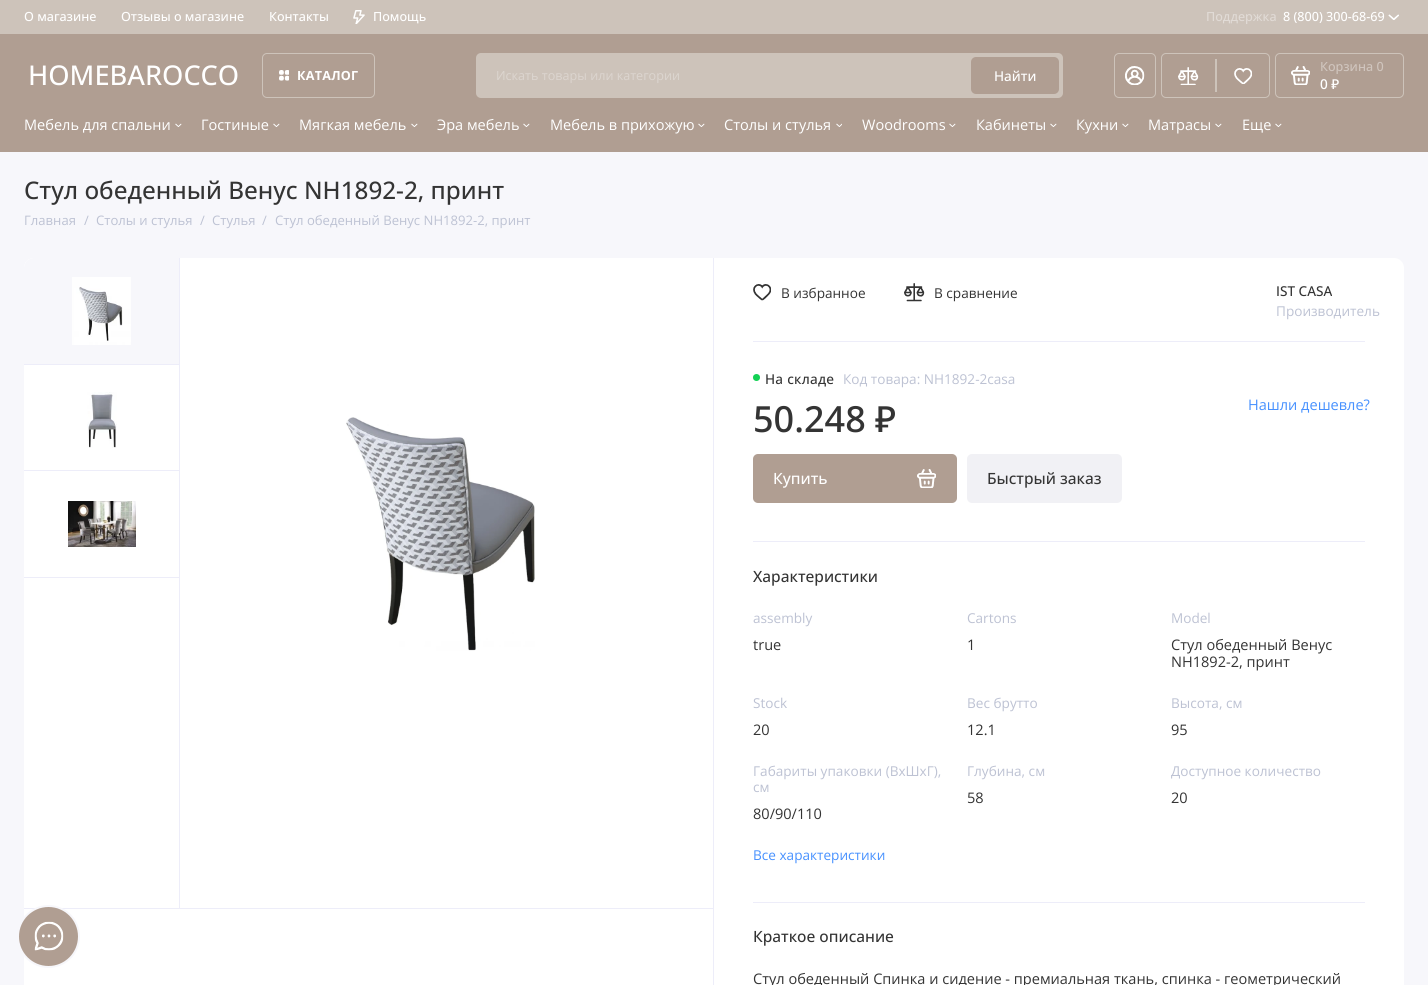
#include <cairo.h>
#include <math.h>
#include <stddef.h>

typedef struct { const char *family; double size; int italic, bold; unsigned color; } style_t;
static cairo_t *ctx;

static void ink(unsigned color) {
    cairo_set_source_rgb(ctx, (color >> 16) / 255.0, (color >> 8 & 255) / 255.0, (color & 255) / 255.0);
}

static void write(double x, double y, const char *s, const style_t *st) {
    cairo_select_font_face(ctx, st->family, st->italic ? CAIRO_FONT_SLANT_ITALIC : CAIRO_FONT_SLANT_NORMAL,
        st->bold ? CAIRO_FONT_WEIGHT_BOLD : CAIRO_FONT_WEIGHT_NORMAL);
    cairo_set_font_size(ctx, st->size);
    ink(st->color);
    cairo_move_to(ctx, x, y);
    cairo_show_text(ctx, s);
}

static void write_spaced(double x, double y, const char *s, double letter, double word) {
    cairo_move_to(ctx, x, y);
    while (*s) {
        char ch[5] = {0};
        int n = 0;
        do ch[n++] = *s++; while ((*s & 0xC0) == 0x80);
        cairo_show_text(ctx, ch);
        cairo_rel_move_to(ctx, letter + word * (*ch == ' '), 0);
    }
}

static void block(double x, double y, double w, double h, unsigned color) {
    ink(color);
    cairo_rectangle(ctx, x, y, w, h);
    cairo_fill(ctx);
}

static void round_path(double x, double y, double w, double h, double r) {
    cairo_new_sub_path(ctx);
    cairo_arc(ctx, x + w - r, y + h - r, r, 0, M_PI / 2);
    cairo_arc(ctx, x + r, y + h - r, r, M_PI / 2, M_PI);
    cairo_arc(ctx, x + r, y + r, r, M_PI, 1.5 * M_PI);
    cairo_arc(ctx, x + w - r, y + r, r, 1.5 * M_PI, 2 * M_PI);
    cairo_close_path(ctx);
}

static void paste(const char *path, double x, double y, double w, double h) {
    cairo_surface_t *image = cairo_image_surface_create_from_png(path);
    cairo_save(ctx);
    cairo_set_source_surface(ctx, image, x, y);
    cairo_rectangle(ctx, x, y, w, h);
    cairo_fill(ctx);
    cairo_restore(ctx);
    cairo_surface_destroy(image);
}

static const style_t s1 = {"Open Sans Medium", 12.6, 0, 0, 0xffffff};
static const style_t s2 = {"Open Sans Medium", 12.6, 0, 0, 0xe1dbd6};
static const style_t s3 = {"Open Sans Medium", 27.25, 0, 0, 0xffffff};
static const style_t s4 = {"Open Sans", 12.6, 0, 0, 0xdcd5cf};
static const style_t s5 = {"Open Sans Medium", 13.6, 0, 0, 0xffffff};
static const style_t s6 = {"Open Sans Medium", 12.6, 0, 0, 0xd0c5be};
static const style_t s7 = {"Noto Sans Medium", 13.6, 0, 0, 0xffffff};
static const style_t s8 = {"Open Sans", 14.55, 0, 0, 0xffffff};
static const style_t s9 = {"Open Sans Medium", 24.25, 0, 0, 0x343434};
static const style_t s10 = {"Open Sans", 13.1, 0, 0, 0xbdc2d3};
static const style_t s11 = {"Open Sans Medium", 13.6, 0, 0, 0x343434};
static const style_t s12 = {"Open Sans", 13.6, 0, 0, 0xbdc2d3};
static const style_t s13 = {"Open Sans", 14.55, 0, 0, 0x4791ff};
static const style_t s14 = {"Open Sans Medium", 15.5, 0, 0, 0xffffff};
static const style_t s15 = {"Open Sans Medium", 15.5, 0, 0, 0x343434};
static const style_t s16 = {"Noto Sans Medium", 36, 0, 0, 0x343434};
static const style_t s17 = {"Open Sans", 13.6, 0, 0, 0x343434};
static const style_t s18 = {"Open Sans", 14.55, 0, 0, 0x343434};
static const style_t s19 = {"Open Sans", 13.6, 0, 0, 0x4791ff};

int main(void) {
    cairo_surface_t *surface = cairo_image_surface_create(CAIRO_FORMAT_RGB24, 1428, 985);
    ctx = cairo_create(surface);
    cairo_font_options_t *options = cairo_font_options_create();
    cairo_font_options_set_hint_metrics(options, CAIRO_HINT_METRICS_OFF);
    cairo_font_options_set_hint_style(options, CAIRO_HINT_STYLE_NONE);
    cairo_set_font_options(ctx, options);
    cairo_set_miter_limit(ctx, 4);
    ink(0xf7f7fb);
    cairo_paint(ctx);
    block(0, 34, 1428, 118, 0xb09e92);
    block(0, 0, 1428, 34, 0xcdc3ba);
    write(24, 21, "О магазине", &s1);
    write(121, 21, "Отзывы о магазине", &s1);
    write(269, 21, "Контакты", &s1);
    paste("pic1.png", 353, 10, 12, 14);
    write(373, 21, "Помощь", &s1);
    write(1206, 21, "Поддержка", &s2);
    write(1283, 21, "8 (800) 300-68-69", &s1);
    paste("pic2.png", 1388, 14, 11, 6);
    write(28, 85, "HOMEBAROCCO", &s3);
    round_path(262.5, 53.5, 112, 44, 4.5);
    ink(0xcdc3ba);
    cairo_set_line_width(ctx, 1);
    cairo_stroke(ctx);
    paste("pic3.png", 279, 70, 10, 11);
    cairo_select_font_face(ctx, "Open Sans", CAIRO_FONT_SLANT_NORMAL, CAIRO_FONT_WEIGHT_BOLD);
    cairo_set_font_size(ctx, 12.6);
    ink(0xffffff);
    write_spaced(297, 80, "КАТАЛОГ", 0.25, 0);
    ink(0xcdc3ba);
    round_path(476, 53, 587, 45, 5);
    cairo_fill(ctx);
    write(496, 80, "Искать товары или категории", &s4);
    ink(0xb09e92);
    round_path(971, 57, 88, 37, 5);
    cairo_fill(ctx);
    write(994, 81, "Найти", &s5);
    round_path(1114.5, 53.5, 41, 44, 4.5);
    ink(0xcdc3ba);
    cairo_stroke(ctx);
    paste("pic4.png", 1125, 66, 20, 19);
    round_path(1161.5, 53.5, 108, 44, 4.5);
    cairo_stroke(ctx);
    paste("pic5.png", 1178, 67, 21, 18);
    block(1215, 59, 2, 33, 0xcdc3ba);
    paste("pic6.png", 1234, 68, 18, 16);
    round_path(1275.5, 53.5, 128, 44, 4.5);
    cairo_stroke(ctx);
    paste("pic7.png", 1291, 66, 19, 19);
    write(1320, 71, "Корзина 0", &s6);
    write(1320, 89, "0 ₽", &s7);
    write(24, 130, "Мебель для спальни", &s8);
    paste("pic8.png", 175, 123, 7, 4);
    write(201, 130, "Гостиные", &s8);
    paste("pic8.png", 273, 123, 7, 4);
    write(299, 130, "Мягкая мебель", &s8);
    paste("pic8.png", 411, 123, 7, 4);
    write(437, 130, "Эра мебель", &s8);
    paste("pic8.png", 523, 123, 7, 4);
    write(550, 130, "Мебель в прихожую", &s8);
    paste("pic8.png", 698, 123, 7, 4);
    write(724, 130, "Столы и стулья", &s8);
    paste("pic9.png", 836, 123, 6, 4);
    write(862, 130, "Woodrooms", &s8);
    paste("pic8.png", 949, 123, 7, 4);
    write(976, 130, "Кабинеты", &s8);
    paste("pic8.png", 1050, 123, 7, 4);
    write(1076, 130, "Кухни", &s8);
    paste("pic8.png", 1122, 123, 7, 4);
    write(1148, 130, "Матрасы", &s8);
    paste("pic8.png", 1215, 123, 7, 4);
    write(1242, 130, "Еще", &s8);
    paste("pic8.png", 1275, 123, 7, 4);
    round_path(24, 258, 1380, 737, 10);
    cairo_fill(ctx);
    block(24, 908, 689, 1, 0xededf9);
    cairo_arc(ctx, 48.5, 936.5, 30.5, 0, 2 * M_PI);
    ink(0xf7f7fb);
    cairo_set_line_width(ctx, 2);
    cairo_stroke(ctx);
    ink(0xb09e92);
    cairo_arc(ctx, 48.5, 936.5, 29.5, 0, 2 * M_PI);
    cairo_fill(ctx);
    paste("pic10.png", 34, 921, 30, 30);
    write(24, 199, "Стул обеденный Венус NH1892-2, принт", &s9);
    write(24, 225, "Главная", &s10);
    write(84, 225, "/", &s10);
    write(96, 225, "Столы и стулья", &s10);
    write(200, 225, "/", &s10);
    write(212, 225, "Стулья", &s10);
    write(262, 225, "/", &s10);
    write(275, 225, "Стул обеденный Венус NH1892-2, принт", &s10);
    block(713, 258, 1, 727, 0xededf9);
    block(179, 258, 1, 650, 0xededf9);
    ink(0xf7f7fb);
    cairo_new_path(ctx);
    cairo_move_to(ctx, 34, 258);
    cairo_line_to(ctx, 179, 258);
    cairo_line_to(ctx, 179, 365);
    cairo_line_to(ctx, 24, 365);
    cairo_line_to(ctx, 24, 268);
    cairo_curve_to(ctx, 24, 262.5, 28.5, 258, 34, 258);
    cairo_close_path(ctx);
    cairo_fill(ctx);
    block(24, 364, 155, 1, 0xededf9);
    paste("pic11.png", 72, 277, 59, 68);
    block(24, 470, 155, 1, 0xededf9);
    paste("pic12.png", 87, 392, 30, 56);
    block(24, 577, 155, 1, 0xededf9);
    paste("pic13.png", 68, 501, 68, 46);
    paste("pic14.png", 346, 417, 189, 234);
    block(753, 541, 612, 1, 0xededf9);
    write(1276, 296, "IST CASA", &s11);
    write(1276, 316, "Производитель", &s12);
    ink(0x13d154);
    cairo_new_path(ctx);
    cairo_arc(ctx, 756.5, 377.5, 3.5, 0, 2 * M_PI);
    cairo_fill(ctx);
    cairo_select_font_face(ctx, "Open Sans Medium", CAIRO_FONT_SLANT_NORMAL, CAIRO_FONT_WEIGHT_NORMAL);
    ink(0x343434);
    write_spaced(765, 384, "На складе", 0.25, 0);
    write(843, 384, "Код товара: NH1892-2casa", &s12);
    write(1248, 410, "Нашли дешевле?", &s13);
    ink(0xb09e92);
    round_path(753, 454, 204, 49, 5);
    cairo_fill(ctx);
    write(773, 484, "Купить", &s14);
    paste("pic7.png", 917, 469, 19, 19);
    ink(0xf1f1f5);
    round_path(967, 454, 155, 49, 5);
    cairo_fill(ctx);
    write(987, 484, "Быстрый заказ", &s15);
    write(753, 432, "50.248 ₽", &s16);
    block(753, 341, 612, 1, 0xededf9);
    paste("pic15.png", 753, 284, 18, 17);
    write(781, 298, "В избранное", &s17);
    paste("pic16.png", 904, 283, 21, 19);
    write(934, 298, "В сравнение", &s17);
    block(753, 902, 612, 1, 0xededf9);
    write(753, 582, "Характеристики", &s15);
    write(753, 623, "assembly", &s12);
    write(753, 650, "true", &s18);
    write(967, 623, "Cartons", &s12);
    write(967, 650, "1", &s18);
    write(1171, 623, "Model", &s12);
    write(1171, 650, "Стул обеденный Венус", &s18);
    write(1171, 667, "NH1892-2, принт", &s18);
    write(753, 708, "Stock", &s12);
    write(753, 735, "20", &s18);
    write(967, 708, "Вес брутто", &s12);
    write(967, 735, "12.1", &s18);
    write(1171, 708, "Высота, см", &s12);
    write(1171, 735, "95", &s18);
    write(753, 776, "Габариты упаковки (ВхШхГ),", &s12);
    write(753, 792, "см", &s12);
    write(753, 819, "80/90/110", &s18);
    write(967, 776, "Глубина, см", &s12);
    write(967, 803, "58", &s18);
    write(1171, 776, "Доступное количество", &s12);
    write(1171, 803, "20", &s18);
    write(753, 860, "Все характеристики", &s19);
    write(753, 942, "Краткое описание", &s15);
    write(753, 984, "Стул обеденный Спинка и сидение - премиальная ткань, спинка - геометрический", &s18);
    cairo_surface_write_to_png(surface, "screenshot.png");
    cairo_font_options_destroy(options);
    cairo_destroy(ctx);
    cairo_surface_destroy(surface);
    return 0;
}
